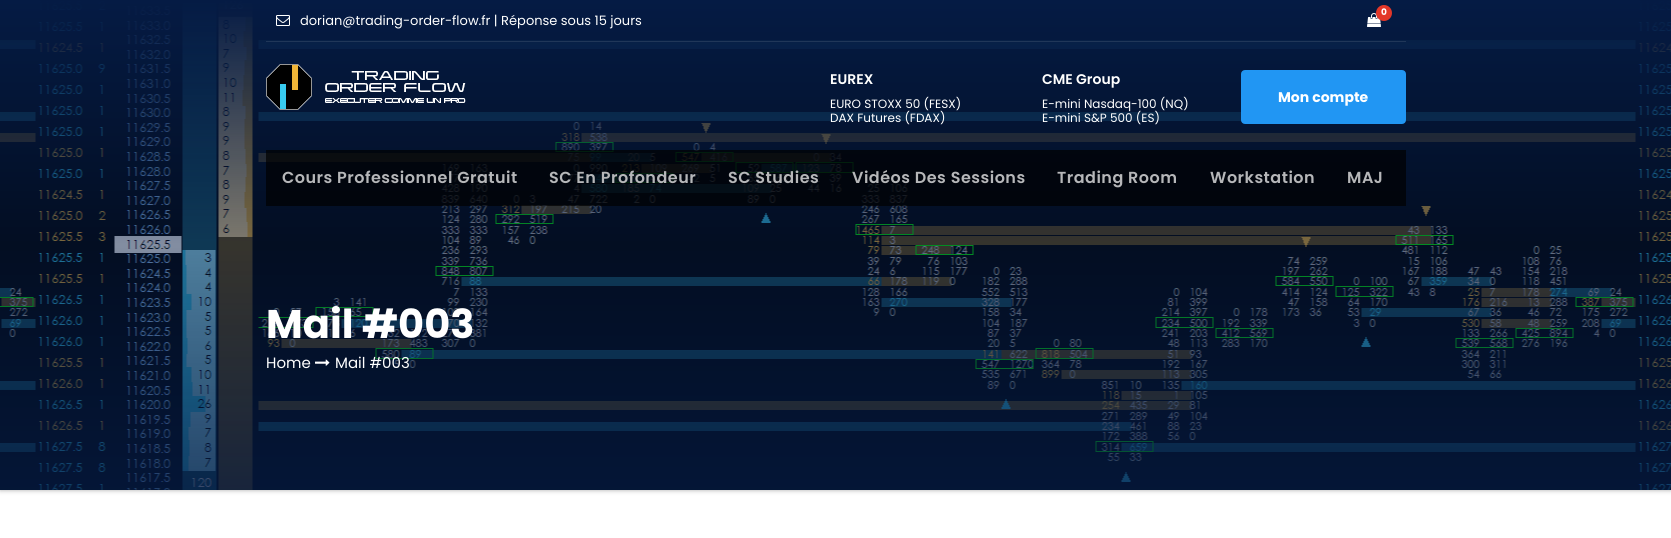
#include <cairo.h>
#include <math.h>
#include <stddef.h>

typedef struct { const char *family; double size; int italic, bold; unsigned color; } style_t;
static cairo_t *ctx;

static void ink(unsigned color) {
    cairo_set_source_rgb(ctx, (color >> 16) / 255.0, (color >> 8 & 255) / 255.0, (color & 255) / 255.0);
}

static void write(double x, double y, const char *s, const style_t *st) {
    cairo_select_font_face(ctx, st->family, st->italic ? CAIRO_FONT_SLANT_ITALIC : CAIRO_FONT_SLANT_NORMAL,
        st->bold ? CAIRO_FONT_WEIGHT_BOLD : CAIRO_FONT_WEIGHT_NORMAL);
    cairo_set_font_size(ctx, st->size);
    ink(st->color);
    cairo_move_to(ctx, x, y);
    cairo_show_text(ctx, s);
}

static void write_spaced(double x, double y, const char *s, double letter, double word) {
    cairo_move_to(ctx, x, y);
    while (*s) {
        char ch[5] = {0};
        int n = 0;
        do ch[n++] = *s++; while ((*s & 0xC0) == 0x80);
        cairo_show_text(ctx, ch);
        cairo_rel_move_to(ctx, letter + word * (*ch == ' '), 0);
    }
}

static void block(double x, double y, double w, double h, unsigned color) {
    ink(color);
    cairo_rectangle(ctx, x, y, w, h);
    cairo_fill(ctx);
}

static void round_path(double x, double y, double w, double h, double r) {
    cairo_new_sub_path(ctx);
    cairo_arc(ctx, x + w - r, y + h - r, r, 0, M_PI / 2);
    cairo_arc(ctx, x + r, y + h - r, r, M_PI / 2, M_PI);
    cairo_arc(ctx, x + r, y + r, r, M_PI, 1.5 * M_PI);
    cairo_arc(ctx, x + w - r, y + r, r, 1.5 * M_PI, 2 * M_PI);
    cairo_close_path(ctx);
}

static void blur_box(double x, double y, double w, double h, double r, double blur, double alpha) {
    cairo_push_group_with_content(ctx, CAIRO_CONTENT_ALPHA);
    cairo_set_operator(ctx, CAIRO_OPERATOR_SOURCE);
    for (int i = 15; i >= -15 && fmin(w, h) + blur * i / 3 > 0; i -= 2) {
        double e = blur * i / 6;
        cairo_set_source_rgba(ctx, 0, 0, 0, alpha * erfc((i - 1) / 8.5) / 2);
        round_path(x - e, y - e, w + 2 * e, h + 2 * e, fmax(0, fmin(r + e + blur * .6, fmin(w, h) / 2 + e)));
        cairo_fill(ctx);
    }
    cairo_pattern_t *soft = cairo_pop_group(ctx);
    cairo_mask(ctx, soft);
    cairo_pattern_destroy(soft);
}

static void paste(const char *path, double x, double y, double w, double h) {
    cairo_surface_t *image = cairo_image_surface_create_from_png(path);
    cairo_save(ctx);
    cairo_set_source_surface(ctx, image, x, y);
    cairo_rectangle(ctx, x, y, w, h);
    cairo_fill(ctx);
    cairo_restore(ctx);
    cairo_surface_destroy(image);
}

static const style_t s1 = {"Poppins", 9, 0, 1, 0xffffff};
static const style_t s2 = {"Poppins", 13, 0, 0, 0xffffff};
static const style_t s3 = {"Poppins SemiBold", 14, 0, 0, 0xffffff};
static const style_t s4 = {"Poppins", 12, 0, 0, 0xffffff};
static const style_t s5 = {"Poppins", 14, 0, 1, 0xffffff};
static const style_t s6 = {"Poppins", 40, 0, 1, 0xffffff};
static const style_t s7 = {"Poppins", 15, 0, 0, 0xffffff};

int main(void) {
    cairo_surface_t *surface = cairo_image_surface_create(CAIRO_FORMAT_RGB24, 1671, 538);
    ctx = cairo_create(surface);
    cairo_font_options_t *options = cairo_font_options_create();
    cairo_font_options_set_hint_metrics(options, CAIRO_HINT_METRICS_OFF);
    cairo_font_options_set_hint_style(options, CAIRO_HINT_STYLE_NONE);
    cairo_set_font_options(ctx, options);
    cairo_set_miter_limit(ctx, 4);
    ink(0xffffff);
    cairo_paint(ctx);
    ink(0xaaaaaa);
    blur_box(0, 0, 1671, 490, 0, 2.5, 1);
    paste("pic4.png", 0, 0, 1671, 490);
    block(266, 41, 1140, 1, 0x203759);
    paste("pic1.png", 1367, 13, 14, 14);
    ink(0xe33729);
    cairo_arc(ctx, 1384, 13, 8, 0, 2 * M_PI);
    cairo_fill(ctx);
    write(1381, 15, "0", &s1);
    paste("pic2.png", 276, 15, 14, 11);
    write(300, 25, "dorian@trading-order-flow.fr | Réponse sous 15 jours", &s2);
    paste("pic3.png", 266, 64, 200, 46);
    write(830, 84, "EUREX", &s3);
    write(830, 108, "EURO STOXX 50 (FESX)", &s4);
    write(830, 122, "DAX Futures (FDAX)", &s4);
    write(1042, 84, "CME Group", &s3);
    write(1042, 108, "E-mini Nasdaq-100 (NQ)", &s4);
    write(1042, 122, "E-mini S&P 500 (ES)", &s4);
    ink(0x2196f3);
    round_path(1242, 71, 163, 52, 3);
    cairo_fill_preserve(ctx);
    cairo_stroke(ctx);
    write(1278, 102, "Mon compte", &s5);
    cairo_set_source_rgba(ctx, 0, 0, 0, 0.7);
    cairo_rectangle(ctx, 266, 150, 1140, 56);
    cairo_fill(ctx);
    cairo_select_font_face(ctx, "Poppins SemiBold", CAIRO_FONT_SLANT_NORMAL, CAIRO_FONT_WEIGHT_NORMAL);
    cairo_set_font_size(ctx, 16);
    ink(0xb6b7b9);
    write_spaced(282, 183, "Cours Professionnel Gratuit", 0.5, 0);
    write_spaced(549, 183, "SC En Profondeur", 0.5, 0);
    write_spaced(728, 183, "SC Studies", 0.5, 0);
    write_spaced(852, 183, "Vidéos Des Sessions", 0.5, 0);
    write_spaced(1057, 183, "Trading Room", 0.5, 0);
    write_spaced(1210, 183, "Workstation", 0.5, 0);
    write_spaced(1347, 183, "MAJ", 0.5, 0);
    write(266, 338, "Mail #003", &s6);
    write(266, 368, "Home", &s7);
    paste("pic5.png", 315, 359, 15, 7);
    write(335, 368, "Mail #003", &s7);
    cairo_surface_write_to_png(surface, "screenshot.png");
    cairo_font_options_destroy(options);
    cairo_destroy(ctx);
    cairo_surface_destroy(surface);
    return 0;
}
